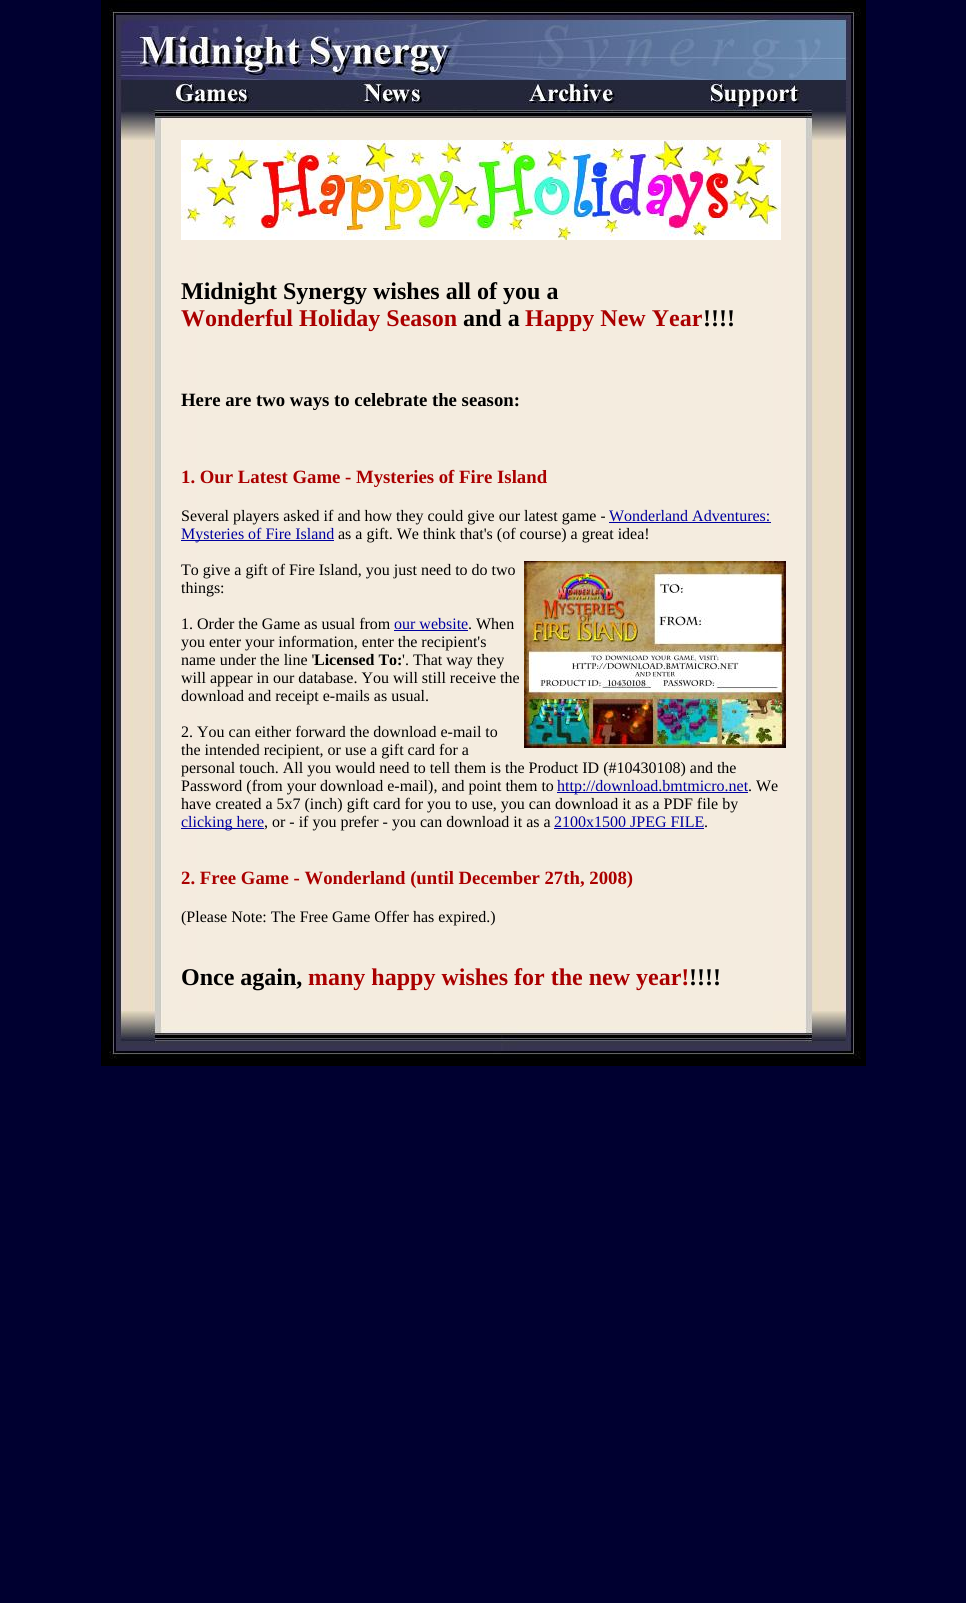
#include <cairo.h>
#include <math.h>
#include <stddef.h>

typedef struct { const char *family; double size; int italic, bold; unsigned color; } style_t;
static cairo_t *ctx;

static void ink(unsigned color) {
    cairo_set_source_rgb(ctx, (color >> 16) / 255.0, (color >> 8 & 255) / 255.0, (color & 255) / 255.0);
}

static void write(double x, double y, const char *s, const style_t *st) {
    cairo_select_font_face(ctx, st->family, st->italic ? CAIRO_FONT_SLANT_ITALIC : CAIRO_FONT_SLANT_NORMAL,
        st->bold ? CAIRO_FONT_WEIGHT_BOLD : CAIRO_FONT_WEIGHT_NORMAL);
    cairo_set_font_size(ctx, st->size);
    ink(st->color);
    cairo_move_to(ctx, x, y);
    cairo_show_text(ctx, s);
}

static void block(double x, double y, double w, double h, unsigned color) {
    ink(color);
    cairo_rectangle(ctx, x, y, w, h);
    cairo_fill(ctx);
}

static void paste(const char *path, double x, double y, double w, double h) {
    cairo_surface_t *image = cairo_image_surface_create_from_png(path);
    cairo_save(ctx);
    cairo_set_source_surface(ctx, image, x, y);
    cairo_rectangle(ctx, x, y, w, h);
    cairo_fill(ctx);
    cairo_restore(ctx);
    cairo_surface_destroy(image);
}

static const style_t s1 = {"Liberation Serif", 24, 0, 1, 0x000000};
static const style_t s2 = {"Liberation Serif", 24, 0, 1, 0xaa0000};
static const style_t s3 = {"Liberation Serif", 18.75, 0, 1, 0x000000};
static const style_t s4 = {"Liberation Serif", 18.75, 0, 1, 0xaa0000};
static const style_t s5 = {"Liberation Serif", 16, 0, 0, 0x000000};
static const style_t s6 = {"Liberation Serif", 16, 0, 0, 0x0000a0};
static const style_t s7 = {"Liberation Serif", 16, 0, 1, 0x000000};

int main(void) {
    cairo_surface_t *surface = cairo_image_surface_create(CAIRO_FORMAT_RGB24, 966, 1603);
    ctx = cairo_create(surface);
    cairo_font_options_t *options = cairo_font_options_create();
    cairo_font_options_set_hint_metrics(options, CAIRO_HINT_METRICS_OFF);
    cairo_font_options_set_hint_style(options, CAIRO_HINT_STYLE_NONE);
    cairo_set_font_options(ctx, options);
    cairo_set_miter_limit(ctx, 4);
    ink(0x000030);
    cairo_paint(ctx);
    paste("pic1.png", 101, 0, 765, 1011);
    paste("pic2.png", 109, 0, 752, 140);
    paste("pic3.png", 181, 140, 600, 100);
    write(181, 299, "Midnight Synergy wishes all of you a", &s1);
    write(181, 326, "Wonderful Holiday Season", &s2);
    write(463, 326, "and a", &s1);
    write(525, 326, "Happy New Year", &s2);
    write(703, 326, "!!!!", &s1);
    write(181, 406, "Here are two ways to celebrate the season:", &s3);
    write(181, 483, "1. Our Latest Game - Mysteries of Fire Island", &s4);
    write(181, 521, "Several players asked if and how they could give our latest game -", &s5);
    write(609, 521, "Wonderland Adventures:", &s6);
    block(609, 522, 162, 1, 0x0000a0);
    block(181, 540, 153, 1, 0x0000a0);
    write(181, 539, "Mysteries of Fire Island", &s6);
    write(338, 539, "as a gift. We think that's (of course) a great idea!", &s5);
    write(181, 575, "To give a gift of Fire Island, you just need to do two", &s5);
    paste("pic4.png", 524, 561, 262, 187);
    write(181, 593, "things:", &s5);
    write(181, 629, "1. Order the Game as usual from", &s5);
    write(394, 629, "our website", &s6);
    block(394, 630, 74, 1, 0x0000a0);
    write(468, 629, ". When", &s5);
    write(181, 647, "you enter your information, enter the recipient's", &s5);
    write(181, 665, "name under the line '", &s5);
    write(314, 665, "Licensed To:", &s7);
    write(402, 665, "'. That way they", &s5);
    write(181, 683, "will appear in our database. You will still receive the", &s5);
    write(181, 701, "download and receipt e-mails as usual.", &s5);
    write(181, 737, "2. You can either forward the download e-mail to", &s5);
    write(181, 755, "the intended recipient, or use a gift card for a", &s5);
    write(181, 773, "personal touch. All you would need to tell them is the Product ID (#10430108) and the", &s5);
    write(181, 791, "Password (from your download e-mail), and point them to", &s5);
    block(557, 792, 191, 1, 0x0000a0);
    write(557, 791, "http://download.bmtmicro.net", &s6);
    write(748, 791, ". We", &s5);
    write(181, 809, "have created a 5x7 (inch) gift card for you to use, you can download it as a PDF file by", &s5);
    block(181, 828, 83, 1, 0x0000a0);
    write(181, 827, "clicking here", &s6);
    write(264, 827, ", or - if you prefer - you can download it as a", &s5);
    write(554, 827, "2100x1500 JPEG FILE", &s6);
    block(554, 828, 150, 1, 0x0000a0);
    write(704, 827, ".", &s5);
    write(181, 884, "2. Free Game - Wonderland (until December 27th, 2008)", &s4);
    write(181, 922, "(Please Note: The Free Game Offer has expired.)", &s5);
    write(181, 985, "Once again,", &s1);
    write(308, 985, "many happy wishes for the new year!", &s2);
    write(689, 985, "!!!!", &s1);
    paste("pic5.png", 101, 1011, 765, 55);
    cairo_surface_write_to_png(surface, "screenshot.png");
    cairo_font_options_destroy(options);
    cairo_destroy(ctx);
    cairo_surface_destroy(surface);
    return 0;
}
